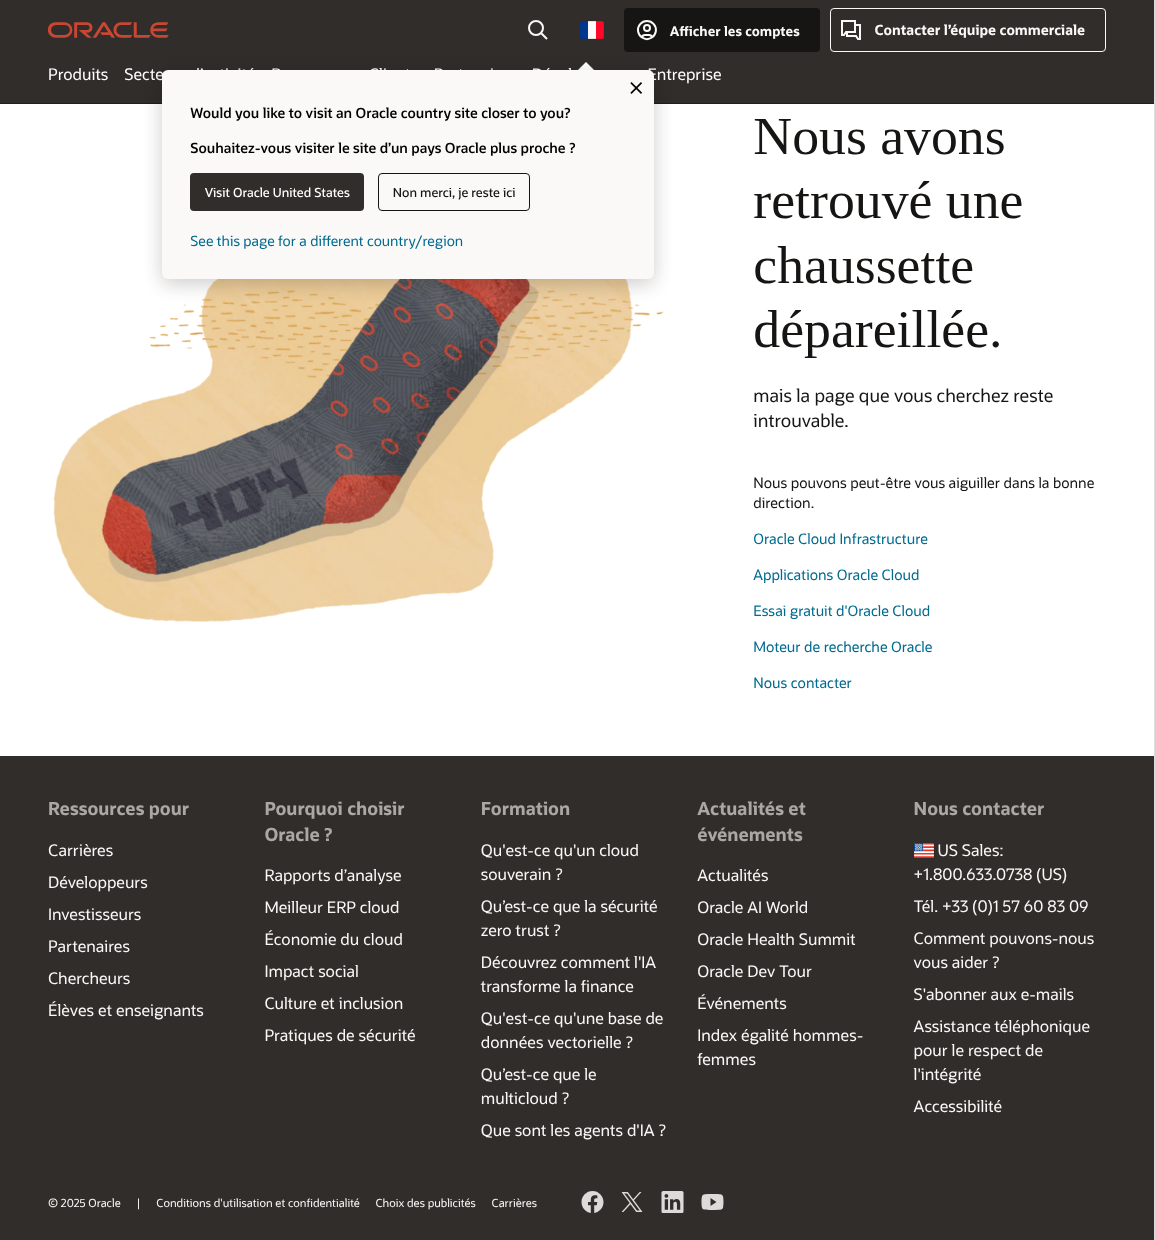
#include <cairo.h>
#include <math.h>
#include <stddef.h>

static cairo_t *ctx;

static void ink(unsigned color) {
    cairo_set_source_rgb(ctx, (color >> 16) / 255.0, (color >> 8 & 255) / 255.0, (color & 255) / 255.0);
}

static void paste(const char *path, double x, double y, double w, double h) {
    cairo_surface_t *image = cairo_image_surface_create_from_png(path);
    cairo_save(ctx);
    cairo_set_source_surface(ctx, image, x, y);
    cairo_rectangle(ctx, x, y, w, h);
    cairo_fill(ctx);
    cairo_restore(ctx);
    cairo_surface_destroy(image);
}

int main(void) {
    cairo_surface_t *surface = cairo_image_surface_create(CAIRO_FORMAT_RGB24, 1155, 1240);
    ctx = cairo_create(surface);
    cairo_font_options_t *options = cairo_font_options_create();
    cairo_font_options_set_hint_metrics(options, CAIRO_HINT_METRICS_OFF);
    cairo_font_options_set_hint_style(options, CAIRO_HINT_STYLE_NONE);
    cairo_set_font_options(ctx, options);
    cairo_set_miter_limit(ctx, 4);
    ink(0xdadee0);
    cairo_paint(ctx);
    paste("pic1.png", 0, 0, 1154, 1240);
    cairo_surface_write_to_png(surface, "screenshot.png");
    cairo_font_options_destroy(options);
    cairo_destroy(ctx);
    cairo_surface_destroy(surface);
    return 0;
}
